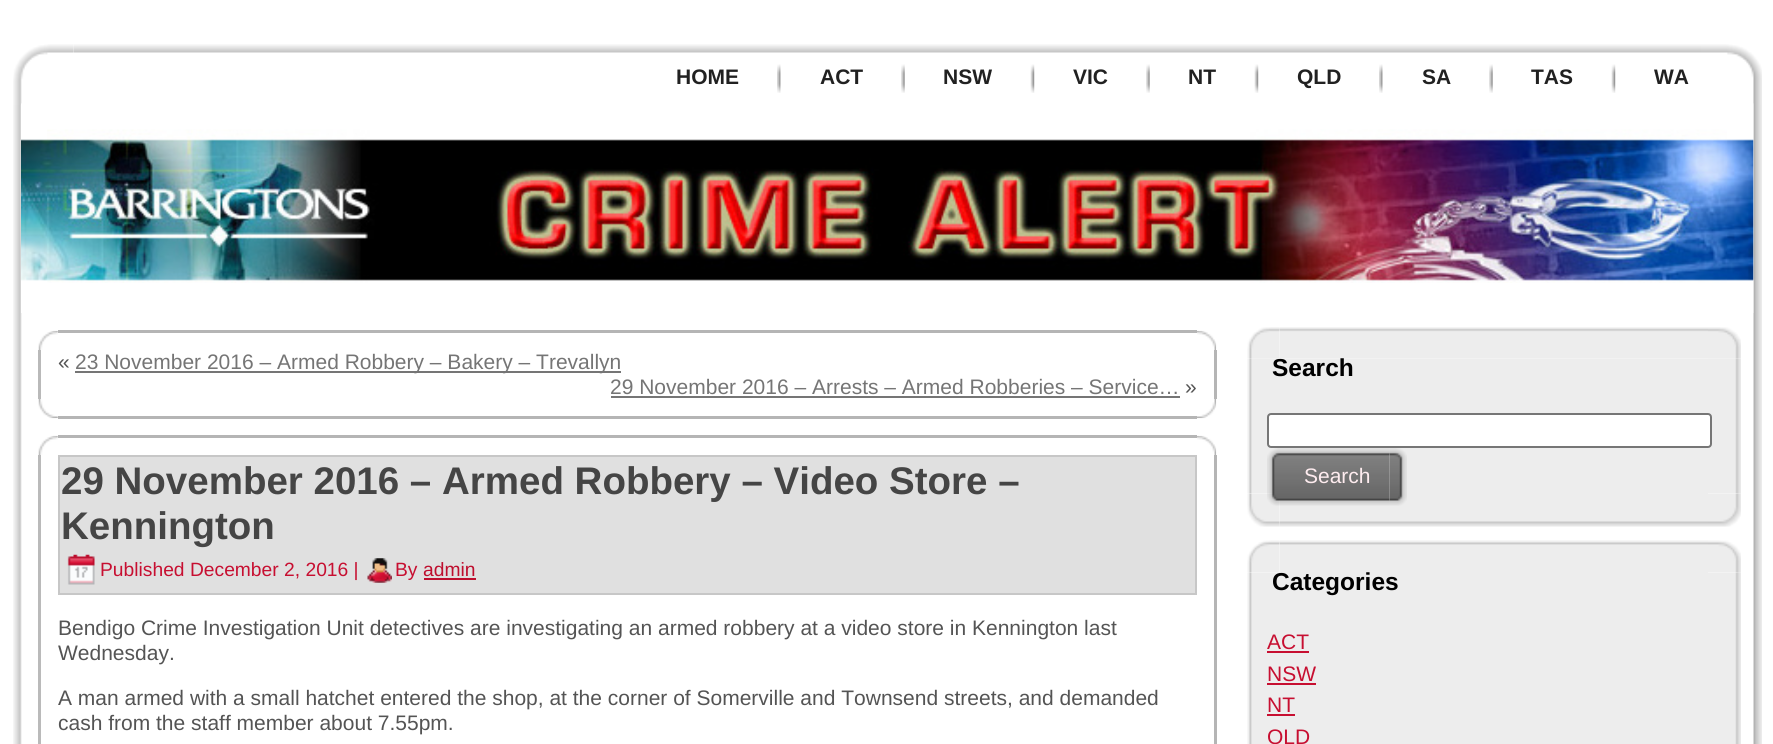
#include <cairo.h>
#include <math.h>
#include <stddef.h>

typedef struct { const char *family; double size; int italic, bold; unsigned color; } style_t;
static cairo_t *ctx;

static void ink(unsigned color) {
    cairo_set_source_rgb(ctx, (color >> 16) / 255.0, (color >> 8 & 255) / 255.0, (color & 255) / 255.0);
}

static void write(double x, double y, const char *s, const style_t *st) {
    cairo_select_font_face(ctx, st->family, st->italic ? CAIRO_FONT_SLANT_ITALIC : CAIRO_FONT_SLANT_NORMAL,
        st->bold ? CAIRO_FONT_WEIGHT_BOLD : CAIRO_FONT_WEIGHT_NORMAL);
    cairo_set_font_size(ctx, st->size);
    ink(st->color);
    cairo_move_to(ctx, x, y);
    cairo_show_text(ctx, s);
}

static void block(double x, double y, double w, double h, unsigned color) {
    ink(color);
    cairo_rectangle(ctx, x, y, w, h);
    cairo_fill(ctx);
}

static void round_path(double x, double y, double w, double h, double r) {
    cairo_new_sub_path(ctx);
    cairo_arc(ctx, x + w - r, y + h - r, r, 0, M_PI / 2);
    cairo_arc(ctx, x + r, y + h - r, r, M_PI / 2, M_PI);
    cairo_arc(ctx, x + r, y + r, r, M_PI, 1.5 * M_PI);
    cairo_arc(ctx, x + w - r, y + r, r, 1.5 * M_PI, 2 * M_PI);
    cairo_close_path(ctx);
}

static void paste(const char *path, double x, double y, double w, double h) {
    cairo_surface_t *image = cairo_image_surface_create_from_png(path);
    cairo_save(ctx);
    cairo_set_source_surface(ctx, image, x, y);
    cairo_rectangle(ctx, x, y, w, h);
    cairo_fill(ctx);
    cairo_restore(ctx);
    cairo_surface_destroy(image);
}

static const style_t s1 = {"Liberation Sans", 21, 0, 1, 0x212121};
static const style_t s2 = {"Liberation Sans", 21, 0, 0, 0x545454};
static const style_t s3 = {"Liberation Sans", 21, 0, 0, 0x757575};
static const style_t s4 = {"Liberation Sans", 38.5, 0, 1, 0x454545};
static const style_t s5 = {"Liberation Sans", 19.25, 0, 0, 0xc70f31};
static const style_t s6 = {"Liberation Sans", 19.25, 0, 0, 0xbe0e2e};
static const style_t s7 = {"Liberation Sans", 24.5, 0, 1, 0x000000};
static const style_t s8 = {"Liberation Sans", 21, 0, 0, 0xfeecef};
static const style_t s9 = {"Liberation Sans", 21, 0, 0, 0xc70f31};

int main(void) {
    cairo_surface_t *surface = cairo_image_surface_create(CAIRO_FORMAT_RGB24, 1773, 744);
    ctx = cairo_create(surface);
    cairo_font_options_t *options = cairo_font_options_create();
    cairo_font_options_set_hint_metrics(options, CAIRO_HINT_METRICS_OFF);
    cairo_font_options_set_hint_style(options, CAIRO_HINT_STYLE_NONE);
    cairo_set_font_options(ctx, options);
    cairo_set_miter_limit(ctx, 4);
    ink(0xffffff);
    cairo_paint(ctx);
    paste("pic1.png", 13, 44, 61, 61);
    paste("pic2.png", 73, 44, 1628, 9);
    paste("pic3.png", 1701, 44, 61, 61);
    paste("pic4.png", 13, 105, 9, 639);
    write(676, 84, "HOME", &s1);
    paste("pic5.png", 777, 64, 4, 29);
    write(820, 84, "ACT", &s1);
    paste("pic6.png", 901, 64, 4, 29);
    write(943, 84, "NSW", &s1);
    paste("pic7.png", 1030, 64, 5, 29);
    write(1073, 84, "VIC", &s1);
    paste("pic6.png", 1146, 64, 4, 29);
    write(1188, 84, "NT", &s1);
    paste("pic7.png", 1254, 64, 5, 29);
    write(1297, 84, "QLD", &s1);
    paste("pic5.png", 1379, 64, 4, 29);
    write(1422, 84, "SA", &s1);
    paste("pic6.png", 1489, 64, 4, 29);
    write(1531, 84, "TAS", &s1);
    paste("pic8.png", 1611, 64, 5, 29);
    write(1654, 84, "WA", &s1);
    paste("pic32.png", 1753, 105, 9, 639);
    paste("pic9.png", 21, 103, 1733, 210);
    paste("pic10.png", 47, 129, 1680, 154);
    paste("pic11.png", 38, 330, 20, 20);
    block(58, 330, 1139, 3, 0xb5b5b5);
    paste("pic12.png", 1197, 330, 20, 20);
    block(38, 350, 3, 49, 0xb9b9b9);
    write(58, 369, "«", &s2);
    block(75, 371, 546, 2, 0x757575);
    write(75, 369, "23 November 2016 – Armed Robbery – Bakery – Trevallyn", &s3);
    write(610, 394, "29 November 2016 – Arrests – Armed Robberies – Service…", &s3);
    block(611, 396, 569, 2, 0x757575);
    write(1185, 394, "»", &s2);
    block(1214, 350, 3, 49, 0xb5b5b5);
    paste("pic13.png", 38, 399, 20, 20);
    block(58, 416, 1139, 3, 0xb5b5b5);
    paste("pic14.png", 1197, 399, 20, 20);
    paste("pic11.png", 38, 435, 20, 20);
    block(58, 435, 1139, 3, 0xb5b5b5);
    paste("pic12.png", 1197, 435, 20, 20);
    block(38, 455, 3, 289, 0xbababa);
    ink(0xe0e0e0);
    cairo_rectangle(ctx, 59, 456, 1137, 138);
    cairo_fill_preserve(ctx);
    ink(0xc7c7c7);
    cairo_stroke(ctx);
    write(61, 494, "29 November 2016 – Armed Robbery – Video Store –", &s4);
    write(61, 539, "Kennington", &s4);
    paste("pic15.png", 67, 554, 28, 31);
    write(100, 576, "Published December 2, 2016 |", &s5);
    paste("pic16.png", 367, 558, 25, 25);
    write(395, 576, "By", &s5);
    write(423, 576, "admin", &s6);
    block(424, 578, 52, 2, 0xbe0e2e);
    write(58, 635, "Bendigo Crime Investigation Unit detectives are investigating an armed robbery at a video store in Kennington last", &s2);
    write(58, 660, "Wednesday.", &s2);
    write(58, 705, "A man armed with a small hatchet entered the shop, at the corner of Somerville and Townsend streets, and demanded", &s2);
    write(58, 730, "cash from the staff member about 7.55pm.", &s2);
    block(1214, 455, 3, 289, 0xb5b5b5);
    paste("pic17.png", 1247, 327, 33, 32);
    paste("pic18.png", 1279, 327, 429, 32);
    paste("pic19.png", 1708, 327, 33, 32);
    paste("pic24.png", 1247, 493, 33, 34);
    paste("pic20.png", 1247, 359, 32, 135);
    block(1279, 359, 429, 135, 0xededed);
    write(1272, 376, "Search", &s7);
    paste("pic26.png", 1708, 493, 33, 34);
    paste("pic23.png", 1708, 359, 33, 135);
    ink(0xffffff);
    round_path(1268, 414, 443, 33, 3);
    cairo_fill_preserve(ctx);
    ink(0x767676);
    cairo_stroke(ctx);
    paste("pic25.png", 1279, 494, 429, 33);
    paste("pic21.png", 1267, 448, 123, 58);
    paste("pic22.png", 1389, 448, 18, 58);
    write(1304, 483, "Search", &s8);
    paste("pic27.png", 1247, 540, 33, 33);
    paste("pic28.png", 1279, 540, 429, 32);
    paste("pic29.png", 1708, 540, 33, 33);
    paste("pic30.png", 1247, 572, 32, 172);
    block(1279, 572, 429, 172, 0xededed);
    write(1272, 590, "Categories", &s7);
    write(1267, 649, "ACT", &s9);
    block(1267, 651, 42, 2, 0xc70f31);
    write(1267, 681, "NSW", &s9);
    block(1267, 683, 49, 2, 0xc70f31);
    write(1267, 712, "NT", &s9);
    block(1267, 714, 28, 2, 0xc70f31);
    write(1267, 744, "QLD", &s9);
    paste("pic31.png", 1708, 572, 33, 172);
    cairo_surface_write_to_png(surface, "screenshot.png");
    cairo_font_options_destroy(options);
    cairo_destroy(ctx);
    cairo_surface_destroy(surface);
    return 0;
}
